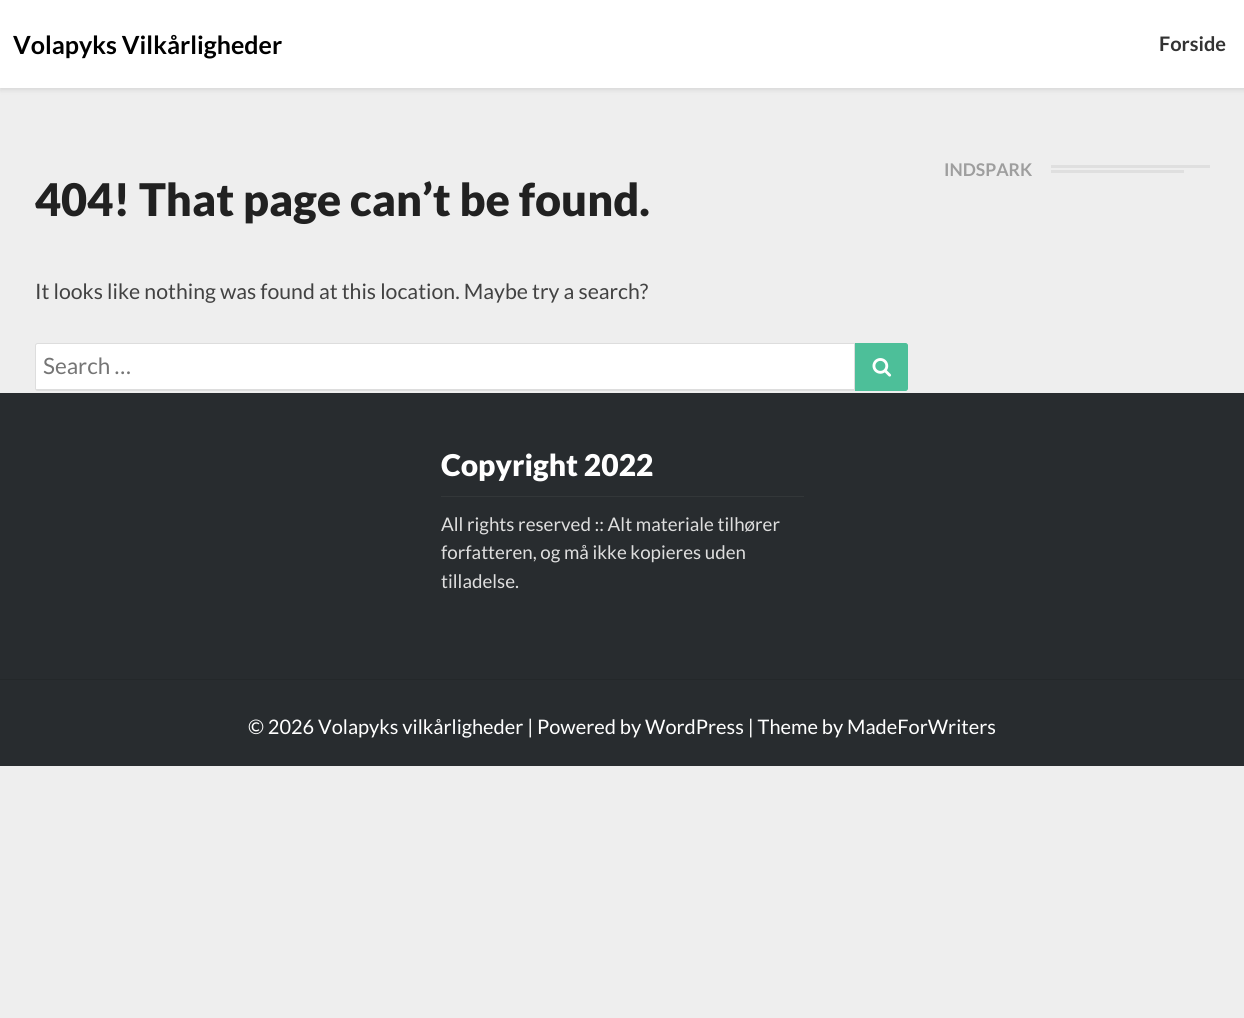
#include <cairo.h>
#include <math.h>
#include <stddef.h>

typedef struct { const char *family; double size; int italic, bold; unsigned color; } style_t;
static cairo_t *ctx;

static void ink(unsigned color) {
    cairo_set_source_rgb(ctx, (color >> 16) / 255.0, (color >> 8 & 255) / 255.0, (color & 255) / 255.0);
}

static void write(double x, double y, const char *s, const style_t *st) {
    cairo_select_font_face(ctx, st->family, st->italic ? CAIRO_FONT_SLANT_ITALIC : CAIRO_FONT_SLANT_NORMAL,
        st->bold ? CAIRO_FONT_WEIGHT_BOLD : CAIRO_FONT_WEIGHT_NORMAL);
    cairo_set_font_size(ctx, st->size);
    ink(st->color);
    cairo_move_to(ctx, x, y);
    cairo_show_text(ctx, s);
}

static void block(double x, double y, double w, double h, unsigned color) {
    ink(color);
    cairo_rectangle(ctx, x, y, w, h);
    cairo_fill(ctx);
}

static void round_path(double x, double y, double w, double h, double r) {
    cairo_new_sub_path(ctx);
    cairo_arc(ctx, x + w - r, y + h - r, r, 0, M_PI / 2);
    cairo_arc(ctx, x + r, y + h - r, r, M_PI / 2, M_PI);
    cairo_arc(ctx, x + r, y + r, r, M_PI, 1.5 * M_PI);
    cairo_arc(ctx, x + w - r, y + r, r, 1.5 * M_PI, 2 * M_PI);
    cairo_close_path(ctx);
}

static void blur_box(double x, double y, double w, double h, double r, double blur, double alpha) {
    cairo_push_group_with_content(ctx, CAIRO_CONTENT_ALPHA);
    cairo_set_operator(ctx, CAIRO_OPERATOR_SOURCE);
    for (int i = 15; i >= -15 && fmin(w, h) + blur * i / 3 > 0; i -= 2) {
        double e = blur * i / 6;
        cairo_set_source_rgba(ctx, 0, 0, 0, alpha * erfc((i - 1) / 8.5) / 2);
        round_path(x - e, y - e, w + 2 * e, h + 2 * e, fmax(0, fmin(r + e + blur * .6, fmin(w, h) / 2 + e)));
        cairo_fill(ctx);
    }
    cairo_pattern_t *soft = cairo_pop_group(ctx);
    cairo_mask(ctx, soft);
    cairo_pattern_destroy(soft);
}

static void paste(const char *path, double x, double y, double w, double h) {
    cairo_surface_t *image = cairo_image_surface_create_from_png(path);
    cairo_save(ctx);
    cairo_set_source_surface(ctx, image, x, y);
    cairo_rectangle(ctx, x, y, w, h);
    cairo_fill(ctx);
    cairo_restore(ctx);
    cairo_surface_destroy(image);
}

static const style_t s1 = {"Lato", 25, 0, 1, 0x000000};
static const style_t s2 = {"Lato", 20, 0, 1, 0x333333};
static const style_t s3 = {"Lato", 17.5, 0, 1, 0x9e9e9e};
static const style_t s4 = {"Lato Black", 45, 0, 0, 0x212121};
static const style_t s5 = {"Lato", 21.25, 0, 0, 0x424242};
static const style_t s6 = {"Lato", 22.5, 0, 0, 0x757575};
static const style_t s7 = {"Lato Black", 30, 0, 0, 0xffffff};
static const style_t s8 = {"Lato", 18.75, 0, 0, 0xdedede};
static const style_t s9 = {"Lato", 20, 0, 0, 0xffffff};

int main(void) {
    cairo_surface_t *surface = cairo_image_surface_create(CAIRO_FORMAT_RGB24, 1244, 1018);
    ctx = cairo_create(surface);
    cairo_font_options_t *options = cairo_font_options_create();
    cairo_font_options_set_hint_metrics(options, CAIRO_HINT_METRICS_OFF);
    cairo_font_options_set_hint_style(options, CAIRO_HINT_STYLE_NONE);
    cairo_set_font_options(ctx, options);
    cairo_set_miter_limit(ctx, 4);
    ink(0xeeeeee);
    cairo_paint(ctx);
    ink(0x000000);
    blur_box(0, 3, 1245, 87, 0, 2.5, 0.1);
    block(0, 0, 1244, 88, 0xffffff);
    write(13, 54, "Volapyks Vilkårligheder", &s1);
    write(1159, 51, "Forside", &s2);
    write(944, 176, "INDSPARK", &s3);
    block(1051, 165, 159, 3, 0xdfdfdf);
    block(1051, 170, 133, 3, 0xdfdfdf);
    write(35, 216, "404! That page can’t be found.", &s4);
    write(35, 299, "It looks like nothing was found at this location. Maybe try a search?", &s5);
    ink(0xffffff);
    cairo_new_path(ctx);
    cairo_move_to(ctx, 38, 344);
    cairo_line_to(ctx, 854, 344);
    cairo_line_to(ctx, 854, 389);
    cairo_line_to(ctx, 36, 389);
    cairo_line_to(ctx, 36, 345);
    cairo_curve_to(ctx, 36, 344, 37, 344, 38, 344);
    cairo_close_path(ctx);
    cairo_fill(ctx);
    cairo_new_path(ctx);
    cairo_move_to(ctx, 37.5, 343.5);
    cairo_line_to(ctx, 854.5, 343.5);
    cairo_line_to(ctx, 854.5, 390.5);
    cairo_line_to(ctx, 37.5, 390.5);
    cairo_curve_to(ctx, 36.5, 390.5, 35.5, 389.5, 35.5, 388.5);
    cairo_line_to(ctx, 35.5, 345.5);
    cairo_curve_to(ctx, 35.5, 344.5, 36.5, 343.5, 37.5, 343.5);
    cairo_close_path(ctx);
    ink(0xdddddd);
    cairo_set_line_width(ctx, 1);
    cairo_stroke(ctx);
    block(36, 389, 819, 1, 0xdddddd);
    write(43, 374, "Search …", &s6);
    ink(0x4dbf99);
    cairo_new_path(ctx);
    cairo_move_to(ctx, 855.5, 343.5);
    cairo_line_to(ctx, 905.5, 343.5);
    cairo_curve_to(ctx, 906.5, 343.5, 907.5, 344.5, 907.5, 345.5);
    cairo_line_to(ctx, 907.5, 388.5);
    cairo_curve_to(ctx, 907.5, 389.5, 906.5, 390.5, 905.5, 390.5);
    cairo_line_to(ctx, 855.5, 390.5);
    cairo_close_path(ctx);
    cairo_fill_preserve(ctx);
    cairo_stroke(ctx);
    paste("pic1.png", 872, 358, 20, 19);
    block(0, 393, 1244, 286, 0x282c2f);
    block(441, 496, 363, 1, 0x333739);
    write(441, 476, "Copyright 2022", &s7);
    write(441, 531, "All rights reserved :: Alt materiale tilhører", &s8);
    write(441, 559, "forfatteren, og må ikke kopieres uden", &s8);
    write(441, 588, "tilladelse.", &s8);
    block(0, 680, 1244, 86, 0x282c2f);
    block(0, 679, 1244, 1, 0x24282a);
    write(248, 734, "© 2026 Volapyks vilkårligheder | Powered by WordPress | Theme by MadeForWriters", &s9);
    cairo_surface_write_to_png(surface, "screenshot.png");
    cairo_font_options_destroy(options);
    cairo_destroy(ctx);
    cairo_surface_destroy(surface);
    return 0;
}
